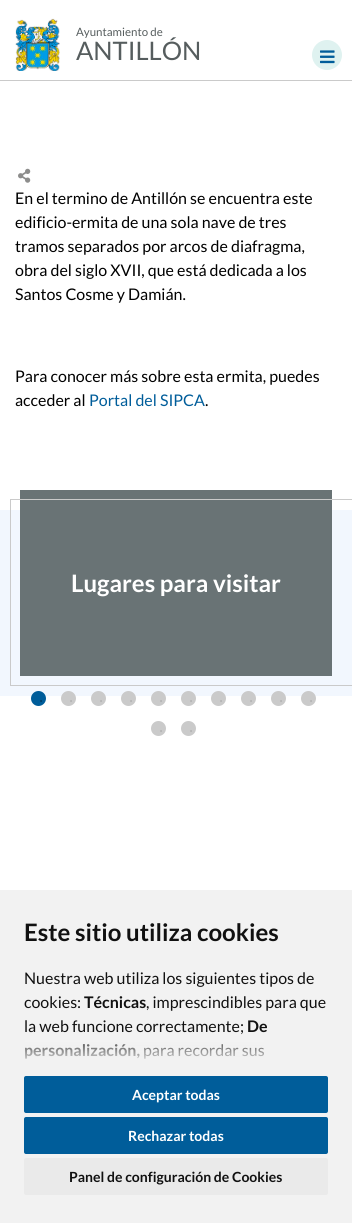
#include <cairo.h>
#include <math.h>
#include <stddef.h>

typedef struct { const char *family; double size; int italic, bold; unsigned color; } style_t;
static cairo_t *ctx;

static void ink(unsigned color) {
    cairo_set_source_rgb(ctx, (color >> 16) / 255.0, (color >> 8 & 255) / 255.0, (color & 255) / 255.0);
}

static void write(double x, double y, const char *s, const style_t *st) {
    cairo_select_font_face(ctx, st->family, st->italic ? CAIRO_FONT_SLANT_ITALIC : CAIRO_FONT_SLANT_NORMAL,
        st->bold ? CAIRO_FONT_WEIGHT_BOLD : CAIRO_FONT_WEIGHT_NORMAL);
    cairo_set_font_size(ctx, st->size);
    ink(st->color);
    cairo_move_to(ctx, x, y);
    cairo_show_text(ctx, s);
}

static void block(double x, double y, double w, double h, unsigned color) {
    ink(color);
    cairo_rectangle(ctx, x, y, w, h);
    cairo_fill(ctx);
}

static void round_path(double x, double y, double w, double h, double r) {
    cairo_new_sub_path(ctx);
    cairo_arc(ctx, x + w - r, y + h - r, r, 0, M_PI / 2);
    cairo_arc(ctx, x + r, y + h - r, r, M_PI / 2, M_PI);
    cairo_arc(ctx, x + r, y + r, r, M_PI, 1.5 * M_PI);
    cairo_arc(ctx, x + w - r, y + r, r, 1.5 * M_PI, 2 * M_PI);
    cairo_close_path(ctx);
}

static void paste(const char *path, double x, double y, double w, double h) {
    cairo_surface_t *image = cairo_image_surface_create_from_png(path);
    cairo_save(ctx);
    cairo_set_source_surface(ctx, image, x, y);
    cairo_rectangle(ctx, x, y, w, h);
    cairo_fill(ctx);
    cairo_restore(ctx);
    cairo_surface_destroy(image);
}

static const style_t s1 = {"Lato", 11.5, 0, 0, 0x565d5e};
static const style_t s2 = {"Lato", 25.5, 0, 0, 0x565d5e};
static const style_t s3 = {"Lato", 16, 0, 0, 0x000000};
static const style_t s4 = {"Lato", 16, 0, 0, 0x005d9a};
static const style_t s5 = {"Lato", 24, 0, 1, 0xffffff};
static const style_t s6 = {"Liberation Serif", 6, 0, 0, 0x001727};
static const style_t s7 = {"Liberation Serif", 6, 0, 0, 0x989898};
static const style_t s8 = {"Lato", 24, 0, 1, 0x111111};
static const style_t s9 = {"Lato", 16, 0, 0, 0x111111};
static const style_t s10 = {"Lato", 16, 0, 1, 0x111111};
static const style_t s11 = {"Lato", 14, 0, 1, 0xffffff};
static const style_t s12 = {"Lato", 14, 0, 1, 0x111111};

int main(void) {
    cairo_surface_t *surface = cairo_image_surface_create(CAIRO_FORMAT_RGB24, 352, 1223);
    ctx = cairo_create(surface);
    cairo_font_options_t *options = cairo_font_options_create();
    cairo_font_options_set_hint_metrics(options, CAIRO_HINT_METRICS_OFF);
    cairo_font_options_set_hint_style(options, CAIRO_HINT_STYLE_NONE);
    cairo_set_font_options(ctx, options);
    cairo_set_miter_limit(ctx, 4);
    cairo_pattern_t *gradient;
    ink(0xffffff);
    cairo_paint(ctx);
    paste("pic1.png", 15, 18, 45, 53);
    write(76, 36, "Ayuntamiento de", &s1);
    write(76, 60, "ANTILLÓN", &s2);
    block(0, 80, 352, 1, 0xcacaca);
    ink(0xdff2f0);
    cairo_new_path(ctx);
    cairo_arc(ctx, 327, 55, 15, 0, 2 * M_PI);
    cairo_fill(ctx);
    paste("pic2.png", 320, 50, 15, 14);
    paste("pic3.png", 18, 168, 13, 15);
    write(15, 204, "En el termino de Antillón se encuentra este", &s3);
    write(15, 228, "edificio-ermita de una sola nave de tres", &s3);
    write(15, 252, "tramos separados por arcos de diafragma,", &s3);
    write(15, 276, "obra del siglo XVII, que está dedicada a los", &s3);
    write(15, 300, "Santos Cosme y Damián.", &s3);
    write(15, 382, "Para conocer más sobre esta ermita, puedes", &s3);
    write(15, 406, "acceder al", &s3);
    write(89, 406, "Portal del SIPCA", &s4);
    write(205, 406, ".", &s3);
    block(0, 510, 352, 186, 0xf2f7fe);
    block(20, 490, 312, 186, 0x697375);
    block(10, 499, 342, 1, 0xcacaca);
    block(10, 685, 342, 1, 0xcacaca);
    block(10, 500, 1, 186, 0xcacaca);
    write(71, 592, "Lugares para visitar", &s5);
    ink(0x005d9a);
    cairo_new_path(ctx);
    cairo_arc(ctx, 38.5, 698.5, 7.5, 0, 2 * M_PI);
    cairo_fill(ctx);
    write(40, 703, "•", &s6);
    ink(0xcacaca);
    cairo_new_path(ctx);
    cairo_arc(ctx, 68.5, 698.5, 7.5, 0, 2 * M_PI);
    cairo_fill(ctx);
    write(70, 703, "•", &s7);
    ink(0xcacaca);
    cairo_new_path(ctx);
    cairo_arc(ctx, 98.5, 698.5, 7.5, 0, 2 * M_PI);
    cairo_fill(ctx);
    write(100, 703, "•", &s7);
    ink(0xcacaca);
    cairo_new_path(ctx);
    cairo_arc(ctx, 128.5, 698.5, 7.5, 0, 2 * M_PI);
    cairo_fill(ctx);
    write(130, 703, "•", &s7);
    ink(0xcacaca);
    cairo_new_path(ctx);
    cairo_arc(ctx, 158.5, 698.5, 7.5, 0, 2 * M_PI);
    cairo_fill(ctx);
    write(160, 703, "•", &s7);
    ink(0xcacaca);
    cairo_new_path(ctx);
    cairo_arc(ctx, 188.5, 698.5, 7.5, 0, 2 * M_PI);
    cairo_fill(ctx);
    write(190, 703, "•", &s7);
    ink(0xcacaca);
    cairo_new_path(ctx);
    cairo_arc(ctx, 218.5, 698.5, 7.5, 0, 2 * M_PI);
    cairo_fill(ctx);
    write(220, 703, "•", &s7);
    ink(0xcacaca);
    cairo_new_path(ctx);
    cairo_arc(ctx, 248.5, 698.5, 7.5, 0, 2 * M_PI);
    cairo_fill(ctx);
    write(250, 703, "•", &s7);
    ink(0xcacaca);
    cairo_new_path(ctx);
    cairo_arc(ctx, 278.5, 698.5, 7.5, 0, 2 * M_PI);
    cairo_fill(ctx);
    write(280, 703, "•", &s7);
    ink(0xcacaca);
    cairo_new_path(ctx);
    cairo_arc(ctx, 308.5, 698.5, 7.5, 0, 2 * M_PI);
    cairo_fill(ctx);
    write(310, 703, "•", &s7);
    ink(0xcacaca);
    cairo_new_path(ctx);
    cairo_arc(ctx, 158.5, 728.5, 7.5, 0, 2 * M_PI);
    cairo_fill(ctx);
    write(160, 733, "•", &s7);
    ink(0xcacaca);
    cairo_new_path(ctx);
    cairo_arc(ctx, 188.5, 728.5, 7.5, 0, 2 * M_PI);
    cairo_fill(ctx);
    write(190, 733, "•", &s7);
    block(0, 890, 352, 333, 0xf2f2f2);
    write(24, 941, "Este sitio utiliza cookies", &s8);
    write(24, 984, "Nuestra web utiliza los siguientes tipos de", &s9);
    write(24, 1008, "cookies:", &s9);
    write(84, 1008, "Técnicas", &s10);
    write(146, 1008, ", imprescindibles para que", &s9);
    write(24, 1032, "la web funcione correctamente;", &s9);
    write(247, 1032, "De", &s10);
    write(24, 1056, "personalización,", &s10);
    write(143, 1056, "para recordar sus", &s9);
    gradient = cairo_pattern_create_linear(176, 1031, 176, 1066);
    cairo_pattern_add_color_stop_rgba(gradient, 0, 0.949, 0.949, 0.949, 0);
    cairo_pattern_add_color_stop_rgba(gradient, 1, 0.949, 0.949, 0.949, 1);
    cairo_set_source(ctx, gradient);
    cairo_pattern_destroy(gradient);
    cairo_rectangle(ctx, 25, 1032, 239, 27);
    cairo_fill(ctx);
    ink(0x005d9a);
    round_path(24, 1076, 304, 37, 2);
    cairo_fill(ctx);
    write(132, 1100, "Aceptar todas", &s11);
    ink(0x005d9a);
    round_path(24, 1117, 304, 37, 2);
    cairo_fill(ctx);
    write(128, 1141, "Rechazar todas", &s11);
    ink(0xeaeaea);
    round_path(24, 1158, 304, 37, 2);
    cairo_fill(ctx);
    write(69, 1182, "Panel de configuración de Cookies", &s12);
    cairo_surface_write_to_png(surface, "screenshot.png");
    cairo_font_options_destroy(options);
    cairo_destroy(ctx);
    cairo_surface_destroy(surface);
    return 0;
}
